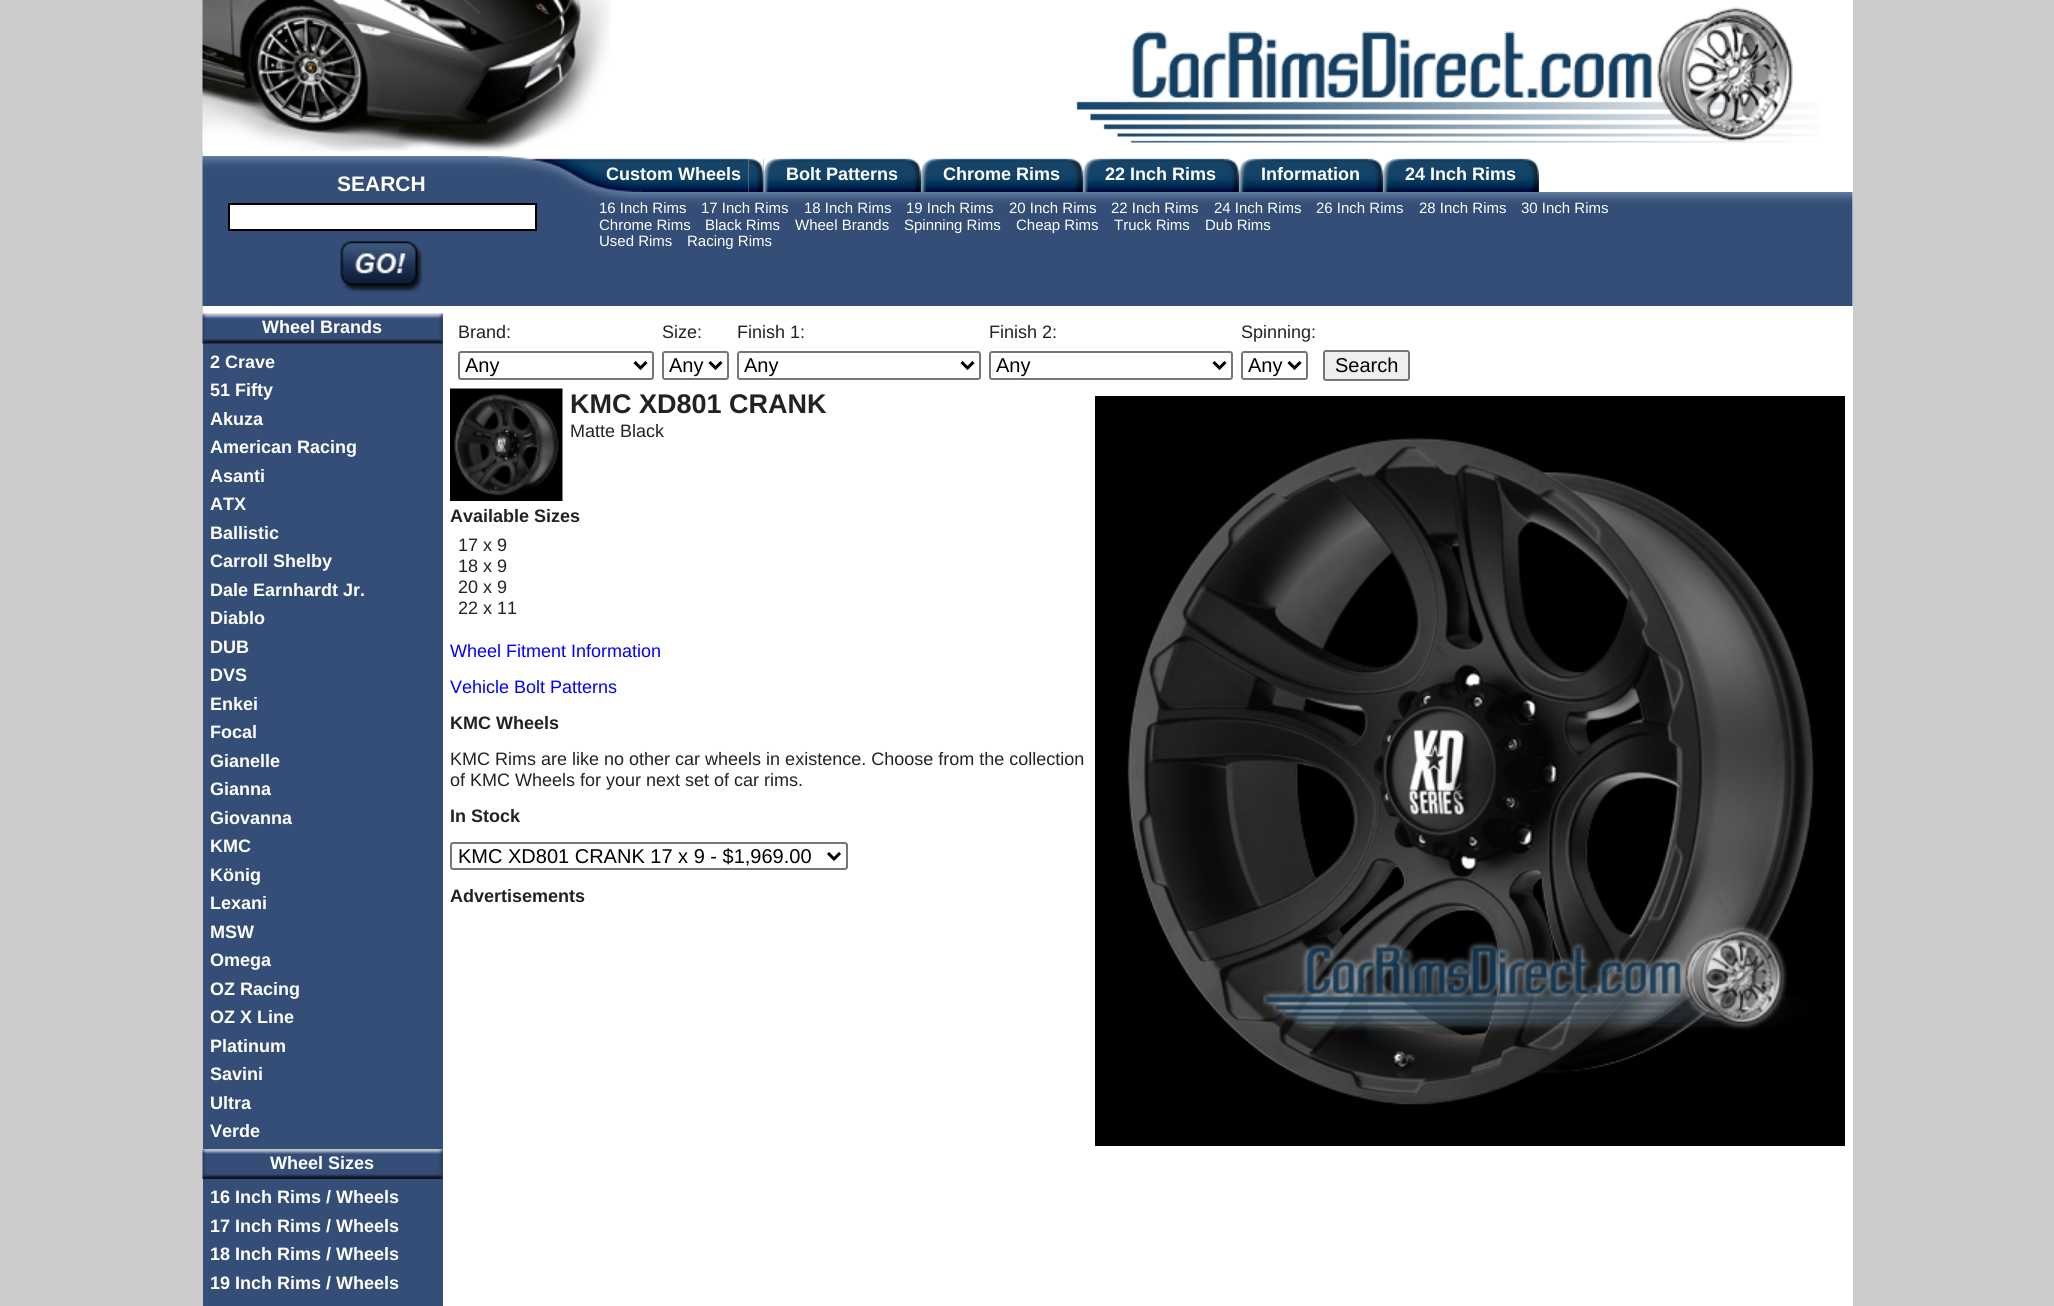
#include <cairo.h>
#include <math.h>
#include <stddef.h>

typedef struct { const char *family; double size; int italic, bold; unsigned color; } style_t;
static cairo_t *ctx;

static void ink(unsigned color) {
    cairo_set_source_rgb(ctx, (color >> 16) / 255.0, (color >> 8 & 255) / 255.0, (color & 255) / 255.0);
}

static void write(double x, double y, const char *s, const style_t *st) {
    cairo_select_font_face(ctx, st->family, st->italic ? CAIRO_FONT_SLANT_ITALIC : CAIRO_FONT_SLANT_NORMAL,
        st->bold ? CAIRO_FONT_WEIGHT_BOLD : CAIRO_FONT_WEIGHT_NORMAL);
    cairo_set_font_size(ctx, st->size);
    ink(st->color);
    cairo_move_to(ctx, x, y);
    cairo_show_text(ctx, s);
}

static void block(double x, double y, double w, double h, unsigned color) {
    ink(color);
    cairo_rectangle(ctx, x, y, w, h);
    cairo_fill(ctx);
}

static void round_path(double x, double y, double w, double h, double r) {
    cairo_new_sub_path(ctx);
    cairo_arc(ctx, x + w - r, y + h - r, r, 0, M_PI / 2);
    cairo_arc(ctx, x + r, y + h - r, r, M_PI / 2, M_PI);
    cairo_arc(ctx, x + r, y + r, r, M_PI, 1.5 * M_PI);
    cairo_arc(ctx, x + w - r, y + r, r, 1.5 * M_PI, 2 * M_PI);
    cairo_close_path(ctx);
}

static void paste(const char *path, double x, double y, double w, double h) {
    cairo_surface_t *image = cairo_image_surface_create_from_png(path);
    cairo_save(ctx);
    cairo_set_source_surface(ctx, image, x, y);
    cairo_rectangle(ctx, x, y, w, h);
    cairo_fill(ctx);
    cairo_restore(ctx);
    cairo_surface_destroy(image);
}

static const style_t s1 = {"Liberation Sans", 18, 0, 1, 0xffffff};
static const style_t s2 = {"Liberation Sans", 21, 0, 1, 0xffffff};
static const style_t s3 = {"Liberation Sans", 15, 0, 0, 0xffffff};
static const style_t s4 = {"Liberation Sans", 18, 0, 0, 0x222222};
static const style_t s5 = {"Liberation Sans", 20, 0, 0, 0x000000};
static const style_t s6 = {"Liberation Sans", 27, 0, 1, 0x222222};
static const style_t s7 = {"Liberation Sans", 18, 0, 1, 0x222222};
static const style_t s8 = {"Liberation Sans", 18, 0, 0, 0x0000ff};

int main(void) {
    cairo_surface_t *surface = cairo_image_surface_create(CAIRO_FORMAT_RGB24, 2054, 1306);
    ctx = cairo_create(surface);
    cairo_font_options_t *options = cairo_font_options_create();
    cairo_font_options_set_hint_metrics(options, CAIRO_HINT_METRICS_OFF);
    cairo_font_options_set_hint_style(options, CAIRO_HINT_STYLE_NONE);
    cairo_set_font_options(ctx, options);
    cairo_set_miter_limit(ctx, 4);
    ink(0xcccccc);
    cairo_paint(ctx);
    block(203, 0, 1650, 1306, 0xffffff);
    paste("pic1.png", 202, 0, 409, 152);
    paste("pic2.png", 1076, 7, 744, 136);
    paste("pic3.png", 591, 158, 158, 34);
    paste("pic4.png", 591, 167, 51, 25);
    write(606, 180, "Custom Wheels", &s1);
    paste("pic5.png", 748, 158, 16, 34);
    paste("pic6.png", 763, 158, 143, 34);
    paste("pic7.png", 763, 158, 33, 34);
    write(786, 180, "Bolt Patterns", &s1);
    paste("pic8.png", 906, 158, 15, 34);
    paste("pic9.png", 954, 158, 114, 34);
    paste("pic10.png", 921, 158, 33, 34);
    write(943, 180, "Chrome Rims", &s1);
    paste("pic11.png", 1068, 158, 15, 34);
    paste("pic12.png", 1116, 158, 108, 34);
    paste("pic13.png", 1083, 158, 33, 34);
    write(1105, 180, "22 Inch Rims", &s1);
    paste("pic11.png", 1224, 158, 15, 34);
    paste("pic14.png", 1272, 158, 96, 34);
    paste("pic13.png", 1239, 158, 33, 34);
    write(1261, 180, "Information", &s1);
    paste("pic8.png", 1368, 158, 15, 34);
    paste("pic12.png", 1416, 158, 108, 34);
    paste("pic10.png", 1383, 158, 33, 34);
    write(1405, 180, "24 Inch Rims", &s1);
    paste("pic8.png", 1524, 158, 15, 34);
    paste("pic15.png", 202, 156, 389, 150);
    write(337, 191, "SEARCH", &s2);
    cairo_rectangle(ctx, 229, 204, 307, 26);
    cairo_fill_preserve(ctx);
    ink(0x000000);
    cairo_stroke(ctx);
    paste("pic16.png", 340, 241, 83, 52);
    paste("pic17.png", 591, 192, 1262, 114);
    paste("pic18.png", 591, 192, 38, 10);
    write(599, 213, "16 Inch Rims", &s3);
    write(701, 213, "17 Inch Rims", &s3);
    write(804, 213, "18 Inch Rims", &s3);
    write(906, 213, "19 Inch Rims", &s3);
    write(1009, 213, "20 Inch Rims", &s3);
    write(1111, 213, "22 Inch Rims", &s3);
    write(1214, 213, "24 Inch Rims", &s3);
    write(1316, 213, "26 Inch Rims", &s3);
    write(1419, 213, "28 Inch Rims", &s3);
    write(1521, 213, "30 Inch Rims", &s3);
    write(599, 230, "Chrome Rims", &s3);
    write(705, 230, "Black Rims", &s3);
    write(795, 230, "Wheel Brands", &s3);
    write(904, 230, "Spinning Rims", &s3);
    write(1016, 230, "Cheap Rims", &s3);
    write(1114, 230, "Truck Rims", &s3);
    write(1205, 230, "Dub Rims", &s3);
    write(599, 246, "Used Rims", &s3);
    write(687, 246, "Racing Rims", &s3);
    block(203, 314, 240, 992, 0x344e77);
    paste("pic19.png", 202, 313, 241, 31);
    write(262, 333, "Wheel Brands", &s1);
    write(210, 368, "2 Crave", &s1);
    write(210, 396, "51 Fifty", &s1);
    write(210, 425, "Akuza", &s1);
    write(210, 453, "American Racing", &s1);
    write(210, 482, "Asanti", &s1);
    write(210, 510, "ATX", &s1);
    write(210, 539, "Ballistic", &s1);
    write(210, 567, "Carroll Shelby", &s1);
    write(210, 596, "Dale Earnhardt Jr.", &s1);
    write(210, 624, "Diablo", &s1);
    write(210, 653, "DUB", &s1);
    write(210, 681, "DVS", &s1);
    write(210, 710, "Enkei", &s1);
    write(210, 738, "Focal", &s1);
    write(210, 767, "Gianelle", &s1);
    write(210, 795, "Gianna", &s1);
    write(210, 824, "Giovanna", &s1);
    write(210, 852, "KMC", &s1);
    write(210, 881, "König", &s1);
    write(210, 909, "Lexani", &s1);
    write(210, 938, "MSW", &s1);
    write(210, 966, "Omega", &s1);
    write(210, 995, "OZ Racing", &s1);
    write(210, 1023, "OZ X Line", &s1);
    write(210, 1052, "Platinum", &s1);
    write(210, 1080, "Savini", &s1);
    write(210, 1109, "Ultra", &s1);
    write(210, 1137, "Verde", &s1);
    paste("pic20.png", 202, 1149, 241, 30);
    write(270, 1169, "Wheel Sizes", &s1);
    write(210, 1203, "16 Inch Rims / Wheels", &s1);
    write(210, 1232, "17 Inch Rims / Wheels", &s1);
    write(210, 1260, "18 Inch Rims / Wheels", &s1);
    write(210, 1289, "19 Inch Rims / Wheels", &s1);
    write(458, 338, "Brand:", &s4);
    write(662, 338, "Size:", &s4);
    write(737, 338, "Finish 1:", &s4);
    write(989, 338, "Finish 2:", &s4);
    write(1241, 338, "Spinning:", &s4);
    round_path(459, 352, 194, 27, 2);
    ink(0x767676);
    cairo_stroke(ctx);
    cairo_new_path(ctx);
    cairo_move_to(ctx, 634.5, 362);
    cairo_line_to(ctx, 640.5, 368);
    cairo_line_to(ctx, 646.5, 362);
    ink(0x000000);
    cairo_set_line_width(ctx, 3);
    cairo_stroke(ctx);
    write(465, 372, "Any", &s5);
    round_path(663, 352, 65, 27, 2);
    ink(0x767676);
    cairo_set_line_width(ctx, 2);
    cairo_stroke(ctx);
    cairo_new_path(ctx);
    cairo_move_to(ctx, 709.5, 362);
    cairo_line_to(ctx, 715.5, 368);
    cairo_line_to(ctx, 721.5, 362);
    ink(0x000000);
    cairo_set_line_width(ctx, 3);
    cairo_stroke(ctx);
    write(669, 372, "Any", &s5);
    round_path(738, 352, 242, 27, 2);
    ink(0x767676);
    cairo_set_line_width(ctx, 2);
    cairo_stroke(ctx);
    cairo_new_path(ctx);
    cairo_move_to(ctx, 961.5, 362);
    cairo_line_to(ctx, 967.5, 368);
    cairo_line_to(ctx, 973.5, 362);
    ink(0x000000);
    cairo_set_line_width(ctx, 3);
    cairo_stroke(ctx);
    write(744, 372, "Any", &s5);
    round_path(990, 352, 242, 27, 2);
    ink(0x767676);
    cairo_set_line_width(ctx, 2);
    cairo_stroke(ctx);
    cairo_new_path(ctx);
    cairo_move_to(ctx, 1213.5, 362);
    cairo_line_to(ctx, 1219.5, 368);
    cairo_line_to(ctx, 1225.5, 362);
    ink(0x000000);
    cairo_set_line_width(ctx, 3);
    cairo_stroke(ctx);
    write(996, 372, "Any", &s5);
    round_path(1242, 352, 65, 27, 2);
    ink(0x767676);
    cairo_set_line_width(ctx, 2);
    cairo_stroke(ctx);
    cairo_new_path(ctx);
    cairo_move_to(ctx, 1288.5, 362);
    cairo_line_to(ctx, 1294.5, 368);
    cairo_line_to(ctx, 1300.5, 362);
    ink(0x000000);
    cairo_set_line_width(ctx, 3);
    cairo_stroke(ctx);
    write(1248, 372, "Any", &s5);
    ink(0xefefef);
    round_path(1324, 351, 85, 29, 2);
    cairo_fill_preserve(ctx);
    ink(0x767676);
    cairo_set_line_width(ctx, 2);
    cairo_stroke(ctx);
    write(1335, 372, "Search", &s5);
    paste("pic21.png", 450, 388, 113, 113);
    write(570, 413, "KMC XD801 CRANK", &s6);
    write(570, 437, "Matte Black", &s4);
    write(450, 522, "Available Sizes", &s7);
    write(458, 551, "17 x 9", &s4);
    write(458, 572, "18 x 9", &s4);
    write(458, 593, "20 x 9", &s4);
    write(458, 614, "22 x 11", &s4);
    write(450, 657, "Wheel Fitment Information", &s8);
    write(450, 693, "Vehicle Bolt Patterns", &s8);
    write(450, 729, "KMC Wheels", &s7);
    write(450, 765, "KMC Rims are like no other car wheels in existence. Choose from the collection", &s4);
    write(450, 786, "of KMC Wheels for your next set of car rims.", &s4);
    write(450, 822, "In Stock", &s7);
    round_path(451, 843, 396, 26, 2);
    ink(0x767676);
    cairo_stroke(ctx);
    cairo_new_path(ctx);
    cairo_move_to(ctx, 828, 853);
    cairo_line_to(ctx, 834, 859);
    cairo_line_to(ctx, 840, 853);
    ink(0x000000);
    cairo_set_line_width(ctx, 3);
    cairo_stroke(ctx);
    write(458, 863, "KMC XD801 CRANK 17 x 9 - $1,969.00", &s5);
    write(450, 902, "Advertisements", &s7);
    paste("pic22.png", 1095, 396, 750, 750);
    cairo_surface_write_to_png(surface, "screenshot.png");
    cairo_font_options_destroy(options);
    cairo_destroy(ctx);
    cairo_surface_destroy(surface);
    return 0;
}
